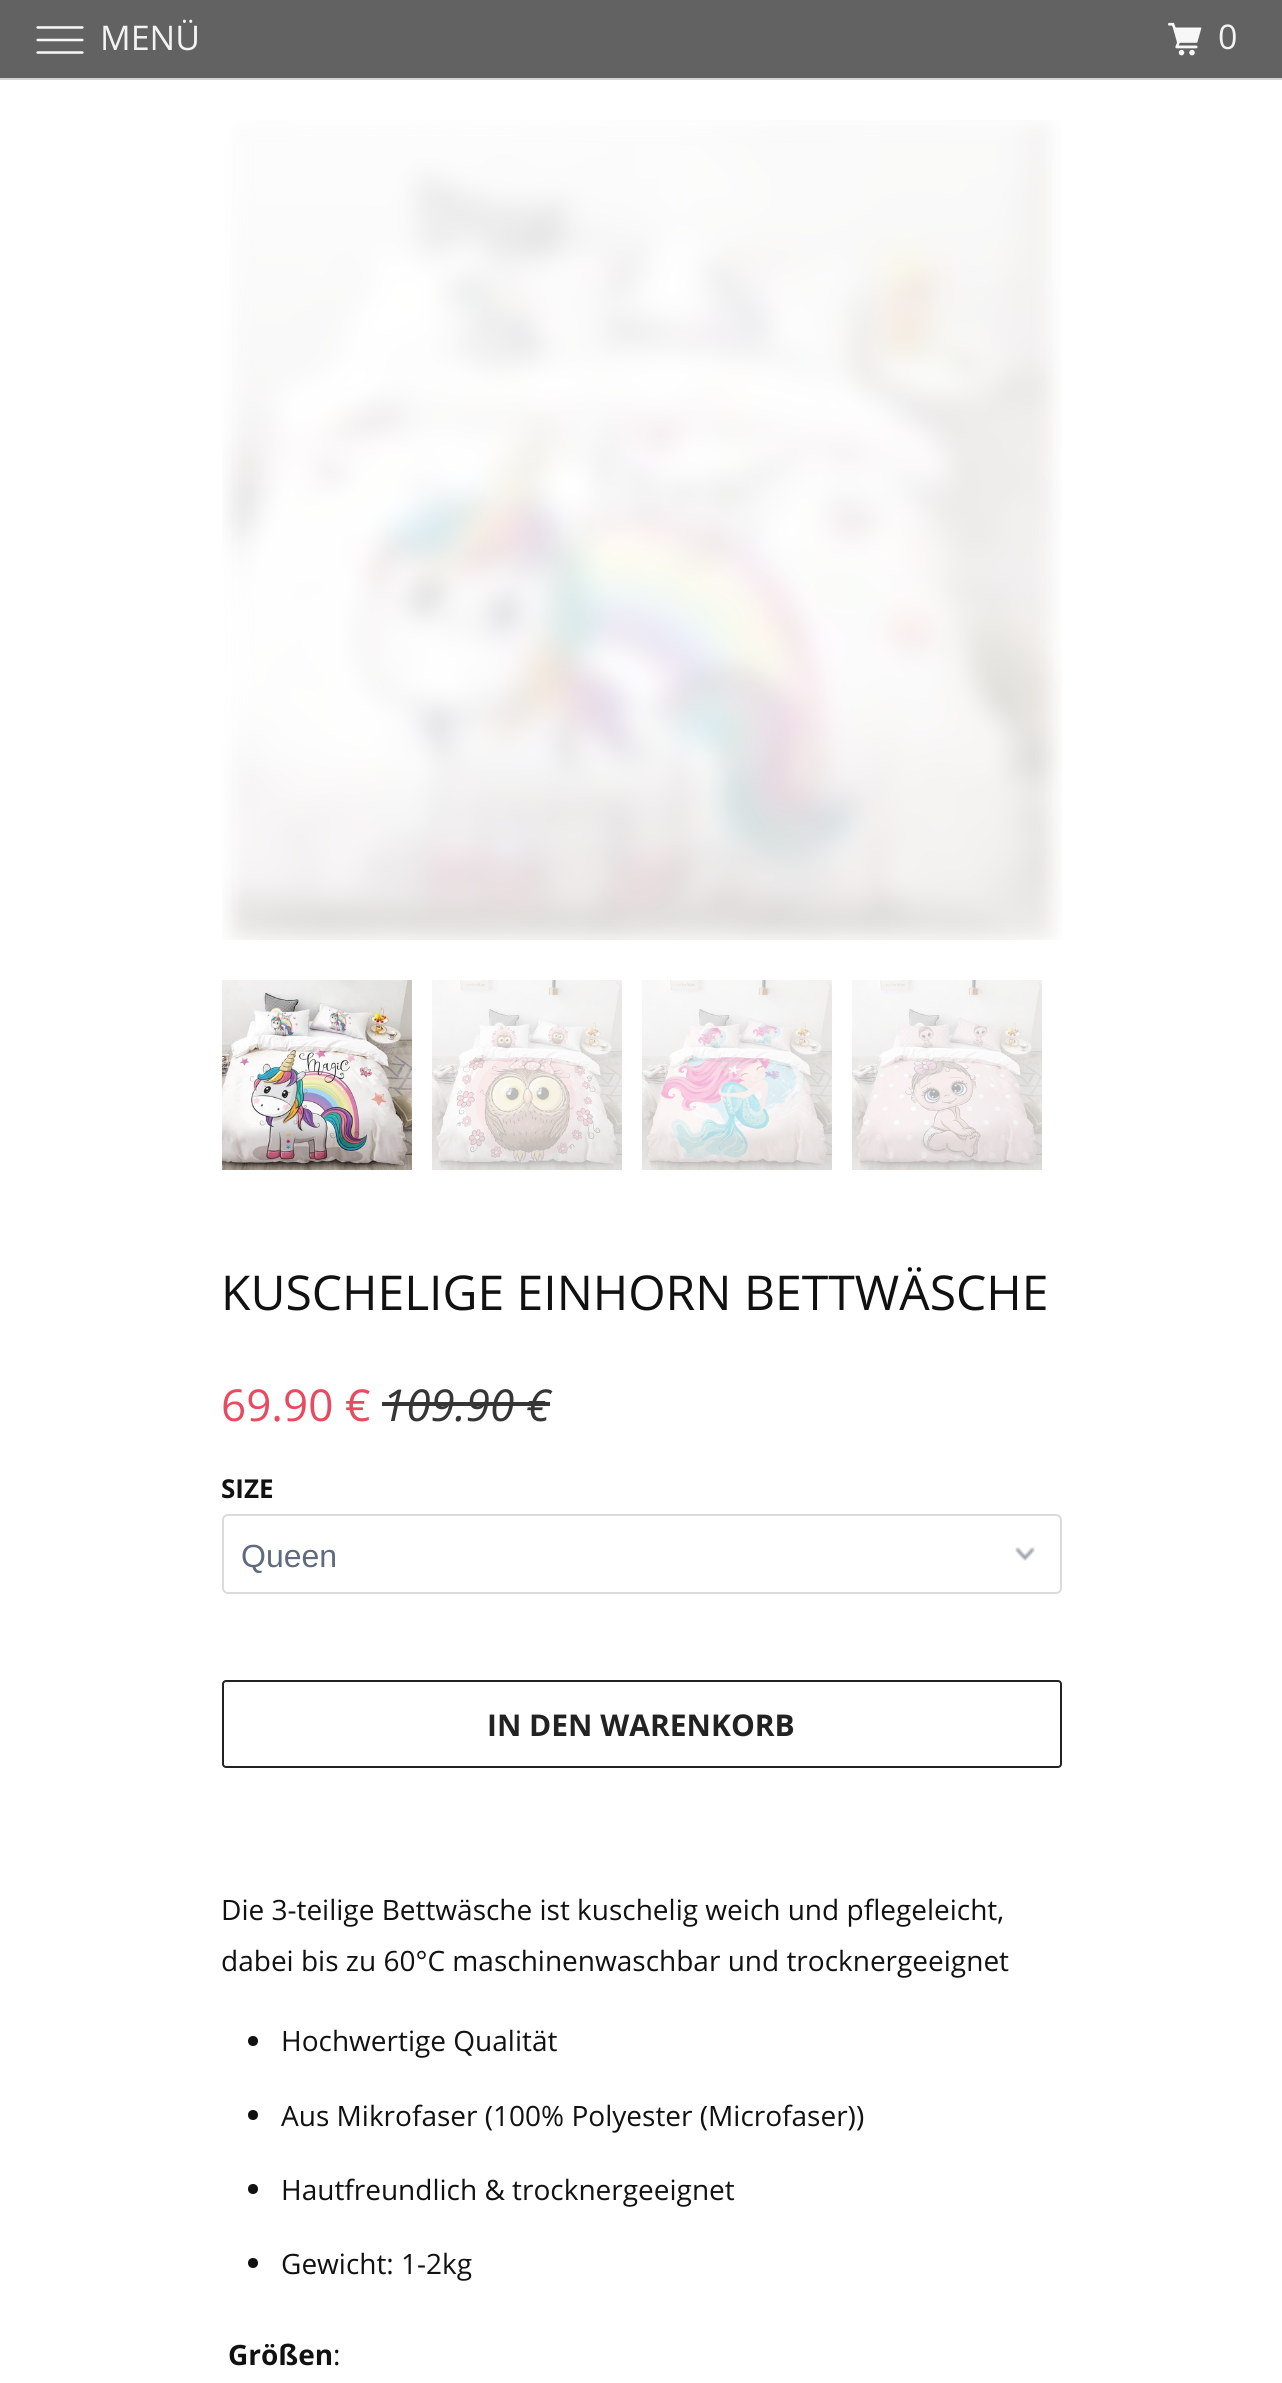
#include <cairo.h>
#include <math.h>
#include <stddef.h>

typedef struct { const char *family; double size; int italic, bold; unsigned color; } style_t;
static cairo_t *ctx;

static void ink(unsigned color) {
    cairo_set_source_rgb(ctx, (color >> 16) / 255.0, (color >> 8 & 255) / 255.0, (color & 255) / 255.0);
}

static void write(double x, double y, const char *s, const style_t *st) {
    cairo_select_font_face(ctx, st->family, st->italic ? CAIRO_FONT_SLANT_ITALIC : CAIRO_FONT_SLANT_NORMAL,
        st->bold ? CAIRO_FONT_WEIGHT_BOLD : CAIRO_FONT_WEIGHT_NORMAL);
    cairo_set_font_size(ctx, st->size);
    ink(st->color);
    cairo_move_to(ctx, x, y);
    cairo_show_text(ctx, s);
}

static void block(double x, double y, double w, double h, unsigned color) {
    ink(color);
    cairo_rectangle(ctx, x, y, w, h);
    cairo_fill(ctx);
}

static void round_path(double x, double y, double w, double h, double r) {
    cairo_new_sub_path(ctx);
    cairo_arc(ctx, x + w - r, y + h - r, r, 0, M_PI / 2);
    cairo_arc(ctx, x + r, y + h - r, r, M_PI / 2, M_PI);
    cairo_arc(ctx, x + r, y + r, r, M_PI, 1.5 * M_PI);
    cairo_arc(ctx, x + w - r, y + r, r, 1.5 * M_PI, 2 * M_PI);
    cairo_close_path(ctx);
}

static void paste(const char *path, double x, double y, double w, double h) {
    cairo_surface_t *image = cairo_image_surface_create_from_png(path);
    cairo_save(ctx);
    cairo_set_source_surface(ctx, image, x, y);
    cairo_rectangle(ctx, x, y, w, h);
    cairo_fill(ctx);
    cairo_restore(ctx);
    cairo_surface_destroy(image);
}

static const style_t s1 = {"Open Sans", 34, 0, 0, 0xf3f3f3};
static const style_t s2 = {"Open Sans", 48, 0, 0, 0x111111};
static const style_t s3 = {"Open Sans", 44, 0, 0, 0xe84a5f};
static const style_t s4 = {"Open Sans", 44, 1, 0, 0x363636};
static const style_t s5 = {"Open Sans", 26, 0, 1, 0x111111};
static const style_t s6 = {"Liberation Sans", 32, 0, 0, 0x5f6a7d};
static const style_t s7 = {"Open Sans", 30, 0, 1, 0x222222};
static const style_t s8 = {"Open Sans", 28, 0, 0, 0x111111};
static const style_t s9 = {"Open Sans", 28, 0, 1, 0x111111};

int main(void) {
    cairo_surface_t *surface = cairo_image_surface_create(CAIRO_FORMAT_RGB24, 1282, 2383);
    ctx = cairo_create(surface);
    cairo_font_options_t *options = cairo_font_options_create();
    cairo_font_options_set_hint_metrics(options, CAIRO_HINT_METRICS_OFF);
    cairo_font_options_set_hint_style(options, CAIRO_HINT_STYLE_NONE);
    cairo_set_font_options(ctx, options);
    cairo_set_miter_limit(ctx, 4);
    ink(0xffffff);
    cairo_paint(ctx);
    block(0, 0, 1282, 78, 0x626262);
    block(0, 78, 1282, 2, 0xd3d3d3);
    paste("pic1.png", 36, 26, 48, 28);
    write(100, 50, "MENÜ", &s1);
    paste("pic2.png", 1168, 22, 34, 34);
    write(1218, 49, "0", &s1);
    paste("pic3.png", 222, 120, 840, 820);
    paste("pic4.png", 222, 980, 190, 190);
    paste("pic5.png", 432, 980, 190, 190);
    paste("pic6.png", 642, 980, 190, 190);
    paste("pic7.png", 852, 980, 190, 190);
    write(221, 1310, "KUSCHELIGE EINHORN BETTWÄSCHE", &s2);
    write(221, 1421, "69.90 €", &s3);
    write(382, 1421, "109.90 €", &s4);
    block(382, 1402, 168, 4, 0x363636);
    write(221, 1498, "SIZE", &s5);
    paste("pic8.png", 1015, 1547, 20, 14);
    round_path(223, 1515, 838, 78, 5);
    ink(0xd9dbdc);
    cairo_stroke(ctx);
    write(241, 1567, "Queen", &s6);
    round_path(223, 1681, 838, 86, 3);
    ink(0x222222);
    cairo_stroke(ctx);
    write(487, 1736, "IN DEN WARENKORB", &s7);
    write(221, 1920, "Die 3-teilige Bettwäsche ist kuschelig weich und pflegeleicht,", &s8);
    write(221, 1971, "dabei bis zu 60°C maschinenwaschbar und trocknergeeignet", &s8);
    cairo_new_path(ctx);
    cairo_arc(ctx, 253, 2041, 5, 0, 2 * M_PI);
    cairo_fill(ctx);
    write(281, 2051, "Hochwertige Qualität", &s8);
    cairo_new_path(ctx);
    cairo_arc(ctx, 253, 2115, 5, 0, 2 * M_PI);
    cairo_fill(ctx);
    write(281, 2126, "Aus Mikrofaser (100% Polyester (Microfaser))", &s8);
    cairo_new_path(ctx);
    cairo_arc(ctx, 253, 2189, 5, 0, 2 * M_PI);
    cairo_fill(ctx);
    write(281, 2200, "Hautfreundlich & trocknergeeignet", &s8);
    cairo_new_path(ctx);
    cairo_arc(ctx, 253, 2263, 5, 0, 2 * M_PI);
    cairo_fill(ctx);
    write(281, 2274, "Gewicht: 1-2kg", &s8);
    write(228, 2365, "Größen", &s9);
    write(333, 2365, ":", &s8);
    cairo_surface_write_to_png(surface, "screenshot.png");
    cairo_font_options_destroy(options);
    cairo_destroy(ctx);
    cairo_surface_destroy(surface);
    return 0;
}
